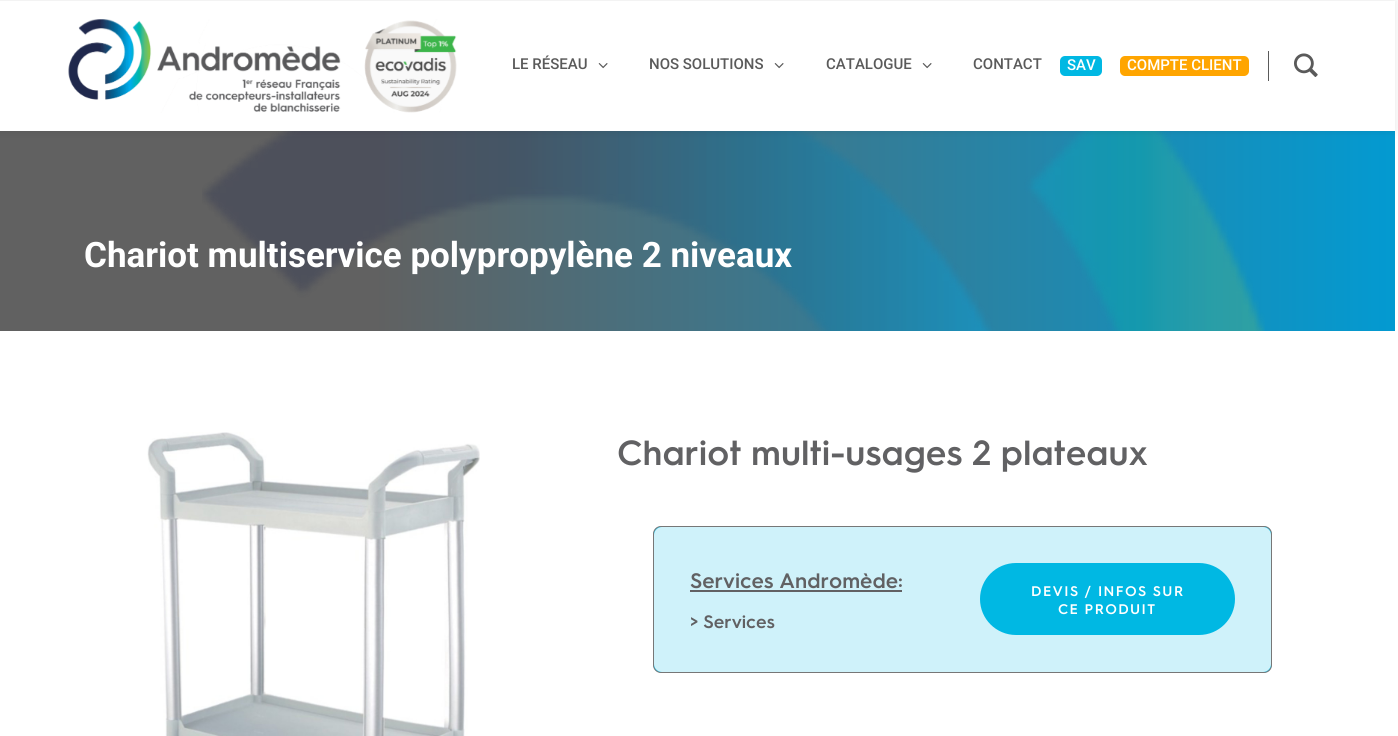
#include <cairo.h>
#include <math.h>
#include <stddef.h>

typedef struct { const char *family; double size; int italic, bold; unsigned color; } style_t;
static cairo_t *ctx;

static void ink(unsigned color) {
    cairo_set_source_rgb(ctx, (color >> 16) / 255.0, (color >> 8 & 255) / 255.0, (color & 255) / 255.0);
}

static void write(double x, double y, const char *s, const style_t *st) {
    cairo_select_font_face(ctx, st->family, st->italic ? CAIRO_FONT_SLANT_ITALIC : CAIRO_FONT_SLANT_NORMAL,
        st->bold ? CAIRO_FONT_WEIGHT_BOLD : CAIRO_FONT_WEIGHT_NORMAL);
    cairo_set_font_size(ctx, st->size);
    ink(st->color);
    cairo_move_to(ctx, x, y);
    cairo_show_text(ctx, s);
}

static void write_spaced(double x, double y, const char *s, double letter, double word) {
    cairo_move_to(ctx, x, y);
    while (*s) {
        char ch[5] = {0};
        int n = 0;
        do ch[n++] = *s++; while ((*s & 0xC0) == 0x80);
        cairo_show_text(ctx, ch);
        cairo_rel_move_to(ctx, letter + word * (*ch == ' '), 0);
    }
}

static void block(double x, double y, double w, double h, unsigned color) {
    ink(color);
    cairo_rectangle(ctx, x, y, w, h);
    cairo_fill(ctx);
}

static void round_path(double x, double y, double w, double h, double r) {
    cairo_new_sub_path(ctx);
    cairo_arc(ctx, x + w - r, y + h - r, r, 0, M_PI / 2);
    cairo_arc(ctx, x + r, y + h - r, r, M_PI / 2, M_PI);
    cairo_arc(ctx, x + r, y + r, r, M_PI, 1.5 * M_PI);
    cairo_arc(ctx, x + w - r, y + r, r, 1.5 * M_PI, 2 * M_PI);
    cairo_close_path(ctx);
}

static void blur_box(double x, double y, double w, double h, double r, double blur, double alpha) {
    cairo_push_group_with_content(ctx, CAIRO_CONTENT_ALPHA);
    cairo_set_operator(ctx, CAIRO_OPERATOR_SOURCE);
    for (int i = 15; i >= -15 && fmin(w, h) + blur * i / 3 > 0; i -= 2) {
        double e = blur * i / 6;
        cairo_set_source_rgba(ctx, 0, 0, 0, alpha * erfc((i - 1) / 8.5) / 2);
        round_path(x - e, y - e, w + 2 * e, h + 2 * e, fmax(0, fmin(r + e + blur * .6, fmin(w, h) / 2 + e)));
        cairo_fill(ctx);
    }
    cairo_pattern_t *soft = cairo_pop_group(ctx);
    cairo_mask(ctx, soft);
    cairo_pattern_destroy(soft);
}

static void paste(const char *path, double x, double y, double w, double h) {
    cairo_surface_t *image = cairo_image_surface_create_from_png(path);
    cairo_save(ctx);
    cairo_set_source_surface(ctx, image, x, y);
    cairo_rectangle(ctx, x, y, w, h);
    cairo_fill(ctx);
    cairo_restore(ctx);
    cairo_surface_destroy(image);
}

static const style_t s1 = {"Roboto Medium", 15, 0, 0, 0x5a5a5a};
static const style_t s2 = {"Roboto Medium", 15, 0, 0, 0xffffff};
static const style_t s3 = {"Roboto", 35, 0, 1, 0xffffff};
static const style_t s4 = {"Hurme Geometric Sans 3 SemiBold", 35, 0, 0, 0x616163};
static const style_t s5 = {"Hurme Geometric Sans 3 SemiBold", 21, 0, 0, 0x616163};
static const style_t s6 = {"Hurme Geometric Sans 3 SemiBold", 18, 0, 0, 0x616163};

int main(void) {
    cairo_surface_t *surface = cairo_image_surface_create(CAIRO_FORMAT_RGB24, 1398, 736);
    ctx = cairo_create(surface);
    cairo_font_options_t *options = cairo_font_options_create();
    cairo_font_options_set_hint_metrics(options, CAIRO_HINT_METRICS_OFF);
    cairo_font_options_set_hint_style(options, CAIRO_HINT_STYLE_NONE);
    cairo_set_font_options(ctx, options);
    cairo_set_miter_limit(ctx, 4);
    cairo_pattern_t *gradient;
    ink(0xffffff);
    cairo_paint(ctx);
    gradient = cairo_pattern_create_linear(-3, 231, 1395, 231);
    cairo_pattern_add_color_stop_rgba(gradient, 0, 0.38, 0.38, 0.38, 1);
    cairo_pattern_add_color_stop_rgba(gradient, 0.27, 0.38, 0.38, 0.38, 1);
    cairo_pattern_add_color_stop_rgba(gradient, 1, 0.012, 0.604, 0.82, 1);
    cairo_set_source(ctx, gradient);
    cairo_pattern_destroy(gradient);
    cairo_rectangle(ctx, 0, 131, 1395, 200);
    cairo_fill(ctx);
    paste("pic4.png", 202, 131, 1063, 200);
    cairo_save(ctx);
    cairo_set_fill_rule(ctx, CAIRO_FILL_RULE_EVEN_ODD);
    cairo_new_path(ctx);
    cairo_move_to(ctx, 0, 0);
    cairo_line_to(ctx, 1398, 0);
    cairo_line_to(ctx, 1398, 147);
    cairo_line_to(ctx, 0, 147);
    cairo_close_path(ctx);
    cairo_move_to(ctx, -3, 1);
    cairo_line_to(ctx, 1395, 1);
    cairo_line_to(ctx, 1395, 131);
    cairo_line_to(ctx, -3, 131);
    cairo_close_path(ctx);
    cairo_clip(ctx);
    ink(0x000000);
    blur_box(-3, 1, 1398, 130, 0, 5, 0.1);
    cairo_restore(ctx);
    paste("pic1.png", 68, 19, 389, 94);
    write(512, 69, "LE RÉSEAU", &s1);
    paste("pic2.png", 598, 63, 10, 6);
    write(649, 69, "NOS SOLUTIONS", &s1);
    paste("pic2.png", 774, 63, 10, 6);
    write(826, 69, "CATALOGUE", &s1);
    paste("pic2.png", 922, 63, 10, 6);
    write(973, 69, "CONTACT", &s1);
    ink(0x00b8e3);
    round_path(1060, 56, 42, 20, 5);
    cairo_fill(ctx);
    write(1067, 70, "SAV", &s2);
    ink(0xffa500);
    round_path(1120, 56, 129, 20, 5);
    cairo_fill(ctx);
    write(1127, 70, "COMPTE CLIENT", &s2);
    block(1268, 51, 1, 30, 0x5a5a5a);
    paste("pic3.png", 1294, 53, 24, 24);
    write(84, 267, "Chariot multiservice polypropylène 2 niveaux", &s3);
    paste("pic5.png", 147, 432, 333, 304);
    write(617, 465, "Chariot multi-usages 2 plateaux", &s4);
    ink(0x00b8e3);
    round_path(653.5, 526.5, 618, 146, 7.5);
    cairo_fill_preserve(ctx);
    ink(0x777777);
    cairo_set_line_width(ctx, 1);
    cairo_stroke(ctx);
    cairo_set_source_rgba(ctx, 1, 1, 1, 0.81);
    round_path(654, 527, 617, 145, 8);
    cairo_fill(ctx);
    write(690, 588, "Services Andromède:", &s5);
    block(690, 590, 212, 2, 0x616163);
    write(690, 628, "> Services", &s6);
    ink(0x00b8e3);
    round_path(981.5, 564.5, 252, 69, 34.5);
    cairo_fill_preserve(ctx);
    cairo_set_line_width(ctx, 3);
    cairo_stroke(ctx);
    cairo_set_font_size(ctx, 14);
    ink(0xffffff);
    write_spaced(1031, 596, "DEVIS / INFOS SUR", 1.4, 0);
    write_spaced(1058, 614, "CE PRODUIT", 1.4, 0);
    cairo_surface_write_to_png(surface, "screenshot.png");
    cairo_font_options_destroy(options);
    cairo_destroy(ctx);
    cairo_surface_destroy(surface);
    return 0;
}
